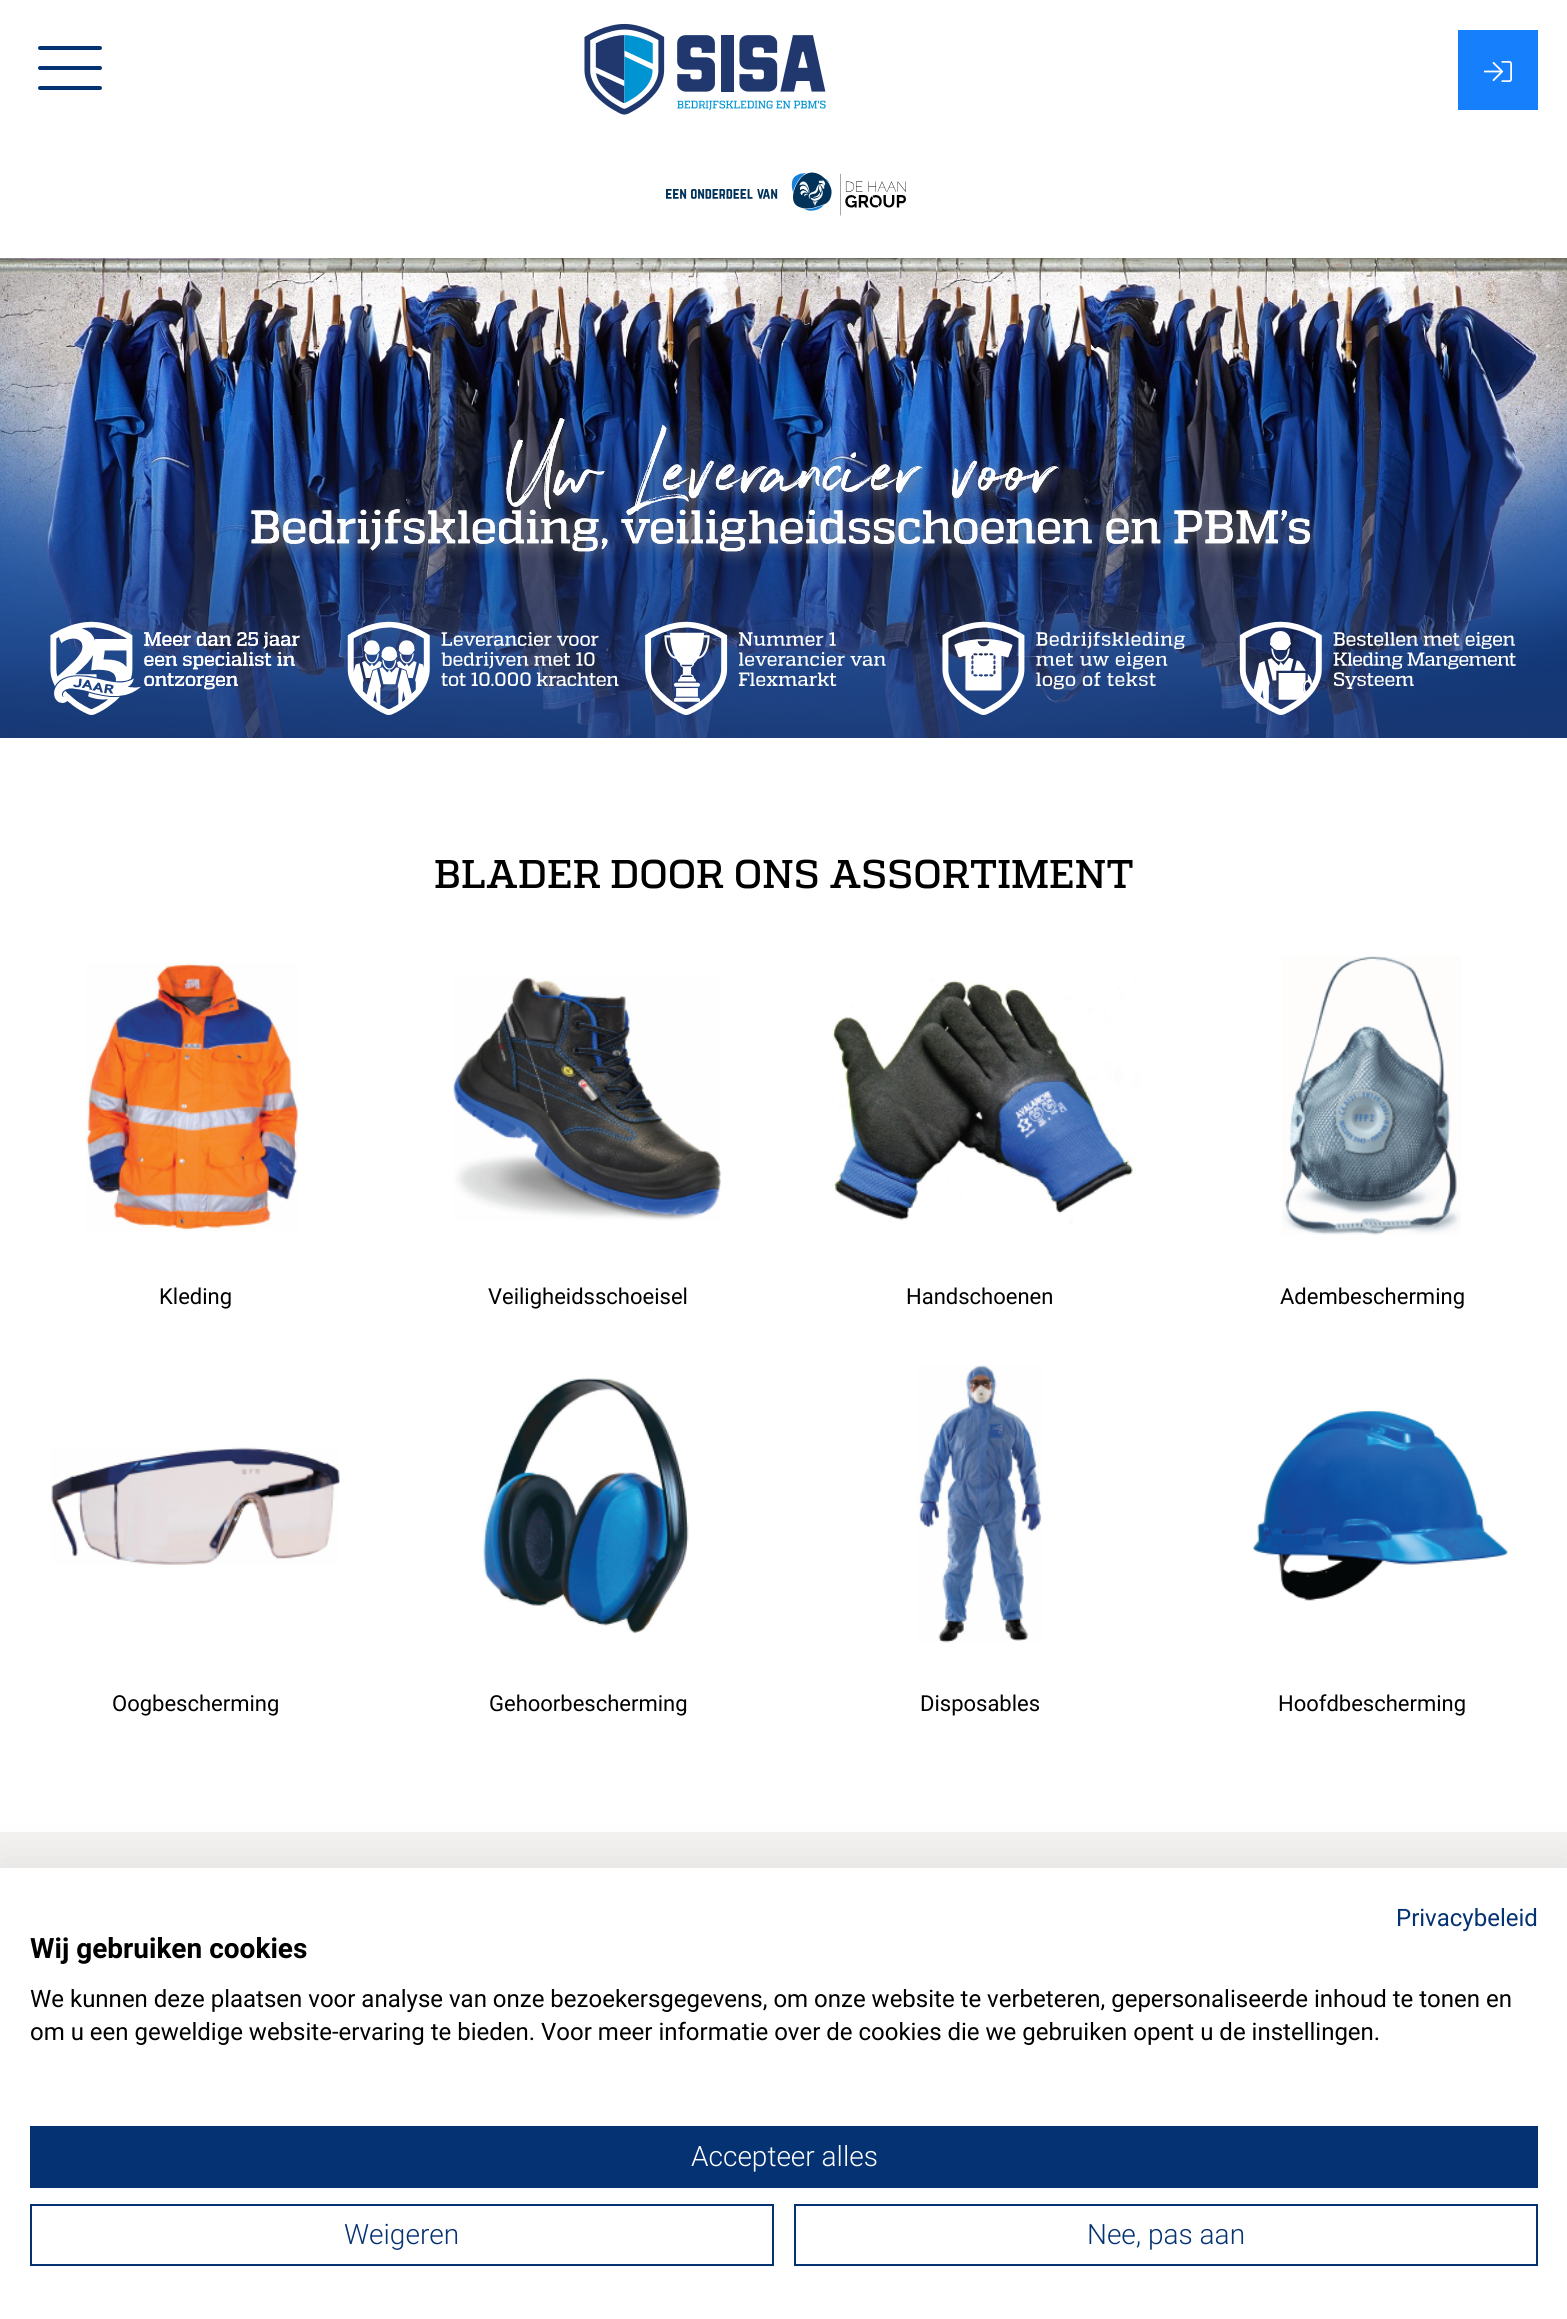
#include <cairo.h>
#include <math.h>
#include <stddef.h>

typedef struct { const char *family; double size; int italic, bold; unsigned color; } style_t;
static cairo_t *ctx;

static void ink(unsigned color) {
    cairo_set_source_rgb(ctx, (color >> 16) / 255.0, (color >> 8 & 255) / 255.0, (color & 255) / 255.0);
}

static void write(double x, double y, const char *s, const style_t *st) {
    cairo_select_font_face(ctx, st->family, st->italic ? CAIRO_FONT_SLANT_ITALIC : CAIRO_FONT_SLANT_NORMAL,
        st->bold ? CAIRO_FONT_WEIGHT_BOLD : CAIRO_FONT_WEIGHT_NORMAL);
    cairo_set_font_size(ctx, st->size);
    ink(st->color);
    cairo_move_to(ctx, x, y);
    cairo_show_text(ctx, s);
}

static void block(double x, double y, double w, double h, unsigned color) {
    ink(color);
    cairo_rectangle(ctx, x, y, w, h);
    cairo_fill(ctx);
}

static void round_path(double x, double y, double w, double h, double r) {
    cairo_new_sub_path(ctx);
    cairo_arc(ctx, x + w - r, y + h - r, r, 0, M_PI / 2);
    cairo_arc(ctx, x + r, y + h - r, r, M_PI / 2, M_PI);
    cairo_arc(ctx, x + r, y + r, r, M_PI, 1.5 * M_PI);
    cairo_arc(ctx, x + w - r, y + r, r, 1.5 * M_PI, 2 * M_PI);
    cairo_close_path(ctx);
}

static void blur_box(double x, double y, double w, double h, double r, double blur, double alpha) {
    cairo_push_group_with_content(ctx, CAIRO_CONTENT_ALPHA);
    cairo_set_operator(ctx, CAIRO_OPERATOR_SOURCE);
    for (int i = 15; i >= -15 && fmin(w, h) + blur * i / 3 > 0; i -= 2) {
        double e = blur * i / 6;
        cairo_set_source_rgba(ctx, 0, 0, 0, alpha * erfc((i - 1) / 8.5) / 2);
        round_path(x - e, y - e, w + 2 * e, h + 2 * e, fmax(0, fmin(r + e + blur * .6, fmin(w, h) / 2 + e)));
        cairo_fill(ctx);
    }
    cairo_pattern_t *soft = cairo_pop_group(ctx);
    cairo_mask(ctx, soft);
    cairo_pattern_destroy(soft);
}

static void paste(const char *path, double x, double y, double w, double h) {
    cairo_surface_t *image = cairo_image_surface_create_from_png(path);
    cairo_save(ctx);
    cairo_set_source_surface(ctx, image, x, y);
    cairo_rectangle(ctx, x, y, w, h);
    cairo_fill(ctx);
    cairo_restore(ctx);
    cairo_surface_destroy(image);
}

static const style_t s1 = {"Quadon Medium", 40, 0, 0, 0x000000};
static const style_t s2 = {"Roboto", 22, 0, 0, 0x000000};
static const style_t s3 = {"Roboto", 24, 0, 0, 0x043272};
static const style_t s4 = {"Roboto", 28, 0, 1, 0x000000};
static const style_t s5 = {"Roboto", 24, 0, 0, 0x000000};
static const style_t s6 = {"Roboto Light", 28, 0, 0, 0xffffff};
static const style_t s7 = {"Roboto Light", 28, 0, 0, 0x043272};

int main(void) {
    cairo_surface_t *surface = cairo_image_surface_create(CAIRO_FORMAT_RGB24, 1567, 2319);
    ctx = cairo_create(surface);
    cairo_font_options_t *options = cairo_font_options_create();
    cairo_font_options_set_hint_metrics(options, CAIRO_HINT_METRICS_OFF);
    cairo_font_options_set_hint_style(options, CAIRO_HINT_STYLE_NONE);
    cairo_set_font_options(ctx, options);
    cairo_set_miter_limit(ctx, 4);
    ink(0xffffff);
    cairo_paint(ctx);
    ink(0x043272);
    round_path(38, 46, 64, 4, 2);
    cairo_fill(ctx);
    round_path(38, 66, 64, 4, 2);
    cairo_fill(ctx);
    round_path(38, 86, 64, 4, 2);
    cairo_fill(ctx);
    paste("pic1.png", 584, 23, 242, 92);
    block(1458, 30, 80, 80, 0x157ffc);
    paste("pic2.png", 1484, 61, 28, 21);
    paste("pic3.png", 666, 172, 240, 44);
    paste("pic4.png", 0, 258, 1567, 480);
    write(434, 888, "BLADER DOOR ONS ASSORTIMENT", &s1);
    paste("pic5.png", 85, 963, 214, 268);
    write(159, 1304, "Kleding", &s2);
    paste("pic6.png", 453, 977, 268, 244);
    write(488, 1304, "Veiligheidsschoeisel", &s2);
    paste("pic7.png", 832, 967, 308, 257);
    write(906, 1304, "Handschoenen", &s2);
    paste("pic8.png", 1282, 956, 179, 279);
    write(1280, 1304, "Adembescherming", &s2);
    paste("pic9.png", 51, 1447, 289, 118);
    write(112, 1711, "Oogbescherming", &s2);
    paste("pic10.png", 483, 1378, 206, 256);
    write(489, 1711, "Gehoorbescherming", &s2);
    paste("pic11.png", 918, 1365, 124, 278);
    write(920, 1711, "Disposables", &s2);
    paste("pic12.png", 1253, 1410, 255, 191);
    write(1278, 1711, "Hoofdbescherming", &s2);
    block(0, 1832, 1567, 36, 0xf4f3f2);
    ink(0x000000);
    blur_box(0, 1868, 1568, 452, 0, 24, 0.1);
    block(0, 1868, 1567, 451, 0xffffff);
    write(1396, 1926, "Privacybeleid", &s3);
    write(30, 1958, "Wij gebruiken cookies", &s4);
    write(30, 2007, "We kunnen deze plaatsen voor analyse van onze bezoekersgegevens, om onze website te verbeteren, gepersonaliseerde inhoud te tonen en", &s5);
    write(30, 2040, "om u een geweldige website-ervaring te bieden. Voor meer informatie over de cookies die we gebruiken opent u de instellingen.", &s5);
    block(30, 2126, 1508, 62, 0x043272);
    write(691, 2166, "Accepteer alles", &s6);
    cairo_rectangle(ctx, 31, 2205, 742, 60);
    ink(0x043272);
    cairo_stroke(ctx);
    write(344, 2244, "Weigeren", &s7);
    cairo_rectangle(ctx, 795, 2205, 742, 60);
    cairo_stroke(ctx);
    write(1087, 2244, "Nee, pas aan", &s7);
    cairo_surface_write_to_png(surface, "screenshot.png");
    cairo_font_options_destroy(options);
    cairo_destroy(ctx);
    cairo_surface_destroy(surface);
    return 0;
}
